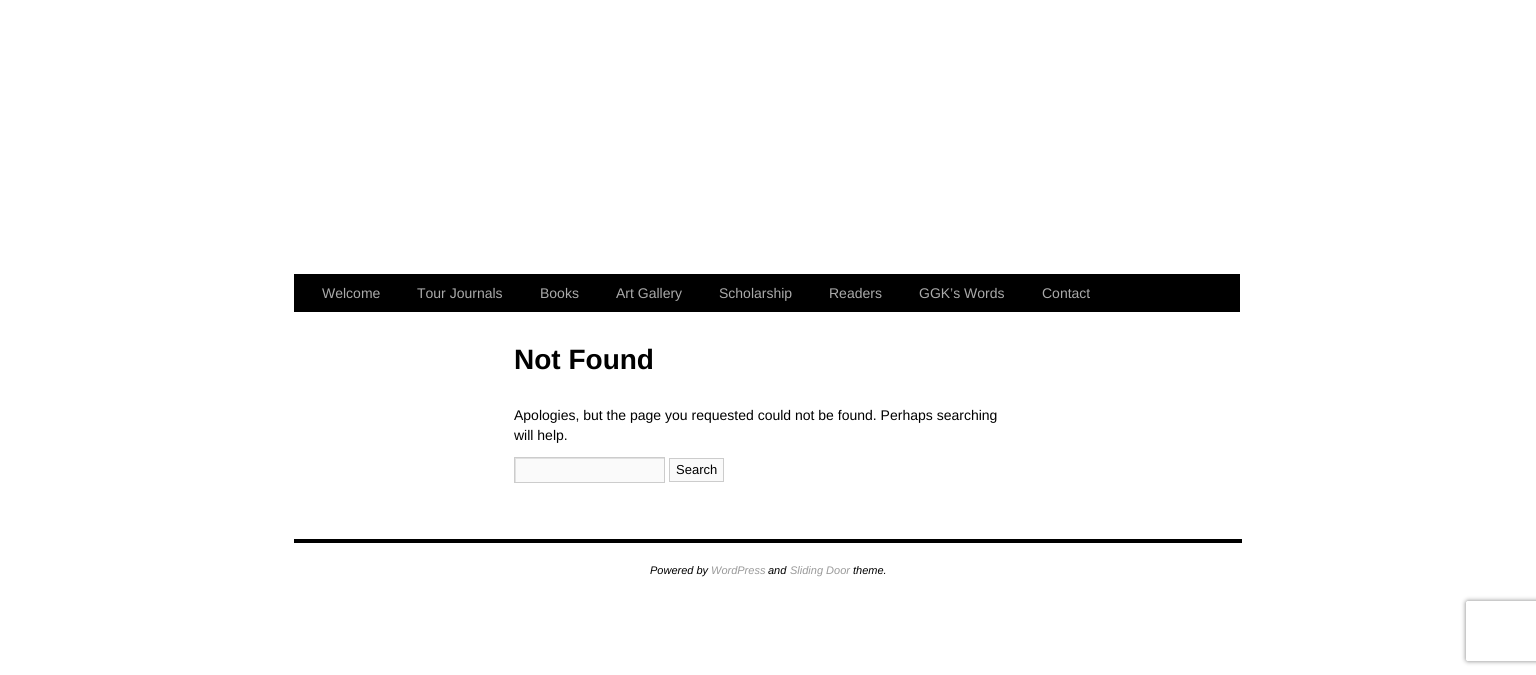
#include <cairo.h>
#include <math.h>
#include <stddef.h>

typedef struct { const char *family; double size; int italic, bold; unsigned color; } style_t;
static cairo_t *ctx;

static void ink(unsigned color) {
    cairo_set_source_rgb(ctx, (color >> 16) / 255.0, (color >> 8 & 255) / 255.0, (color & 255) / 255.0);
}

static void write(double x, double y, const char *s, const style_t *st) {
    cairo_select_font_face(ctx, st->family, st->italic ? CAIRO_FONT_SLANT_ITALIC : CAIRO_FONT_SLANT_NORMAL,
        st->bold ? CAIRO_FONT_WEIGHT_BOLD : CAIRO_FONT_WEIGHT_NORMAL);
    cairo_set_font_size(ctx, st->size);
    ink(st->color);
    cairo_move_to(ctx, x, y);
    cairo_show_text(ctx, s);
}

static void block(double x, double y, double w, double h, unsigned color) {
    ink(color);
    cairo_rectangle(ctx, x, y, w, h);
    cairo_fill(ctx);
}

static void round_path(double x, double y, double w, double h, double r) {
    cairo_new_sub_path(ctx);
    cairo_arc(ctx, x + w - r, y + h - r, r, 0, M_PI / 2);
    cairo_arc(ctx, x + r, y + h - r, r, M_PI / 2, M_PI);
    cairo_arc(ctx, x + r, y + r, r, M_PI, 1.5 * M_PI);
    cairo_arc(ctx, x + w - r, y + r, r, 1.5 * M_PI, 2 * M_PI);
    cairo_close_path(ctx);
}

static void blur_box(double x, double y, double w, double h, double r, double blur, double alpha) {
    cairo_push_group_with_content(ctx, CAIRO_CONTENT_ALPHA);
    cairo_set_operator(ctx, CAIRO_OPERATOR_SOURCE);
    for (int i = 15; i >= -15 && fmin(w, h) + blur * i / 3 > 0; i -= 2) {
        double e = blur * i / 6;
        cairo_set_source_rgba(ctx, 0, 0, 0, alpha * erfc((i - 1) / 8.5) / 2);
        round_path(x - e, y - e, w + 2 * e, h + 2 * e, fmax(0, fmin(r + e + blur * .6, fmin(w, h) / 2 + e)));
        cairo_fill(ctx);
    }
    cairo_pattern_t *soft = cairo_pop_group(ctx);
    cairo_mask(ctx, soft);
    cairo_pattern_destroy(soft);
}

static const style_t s1 = {"Liberation Sans", 14, 0, 0, 0xaaaaaa};
static const style_t s2 = {"Liberation Sans", 28, 0, 1, 0x000000};
static const style_t s3 = {"Liberation Sans", 14, 0, 0, 0x000000};
static const style_t s4 = {"Liberation Sans", 13, 0, 0, 0x000000};
static const style_t s5 = {"Liberation Sans", 11, 1, 0, 0x000000};
static const style_t s6 = {"Liberation Sans", 11, 1, 0, 0x999999};

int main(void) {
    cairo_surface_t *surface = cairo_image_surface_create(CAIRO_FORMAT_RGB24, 1536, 675);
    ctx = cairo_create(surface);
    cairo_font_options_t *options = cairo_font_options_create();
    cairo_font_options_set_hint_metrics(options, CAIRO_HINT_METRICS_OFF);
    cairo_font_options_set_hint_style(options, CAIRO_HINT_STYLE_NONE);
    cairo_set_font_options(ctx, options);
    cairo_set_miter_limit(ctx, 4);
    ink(0xffffff);
    cairo_paint(ctx);
    block(294, 274, 946, 38, 0x000000);
    write(322, 298, "Welcome", &s1);
    write(417, 298, "Tour Journals", &s1);
    write(540, 298, "Books", &s1);
    write(616, 298, "Art Gallery", &s1);
    write(719, 298, "Scholarship", &s1);
    write(829, 298, "Readers", &s1);
    write(919, 298, "GGK’s Words", &s1);
    write(1042, 298, "Contact", &s1);
    write(514, 369, "Not Found", &s2);
    write(514, 420, "Apologies, but the page you requested could not be found. Perhaps searching", &s3);
    write(514, 440, "will help.", &s3);
    block(516, 459, 148, 23, 0xfafafa);
    cairo_save(ctx);
    cairo_rectangle(ctx, 515, 458, 149, 24);
    cairo_clip(ctx);
    ink(0xe1e1e1);
    cairo_set_fill_rule(ctx, CAIRO_FILL_RULE_EVEN_ODD);
    cairo_new_path(ctx);
    cairo_move_to(ctx, 416, 359);
    cairo_line_to(ctx, 763, 359);
    cairo_line_to(ctx, 763, 581);
    cairo_line_to(ctx, 416, 581);
    cairo_close_path(ctx);
    cairo_move_to(ctx, 516, 459);
    cairo_line_to(ctx, 665, 459);
    cairo_line_to(ctx, 665, 483);
    cairo_line_to(ctx, 516, 483);
    cairo_close_path(ctx);
    cairo_fill(ctx);
    cairo_restore(ctx);
    cairo_rectangle(ctx, 514.5, 457.5, 150, 25);
    ink(0xcccccc);
    cairo_set_line_width(ctx, 1);
    cairo_stroke(ctx);
    ink(0xfafafa);
    cairo_rectangle(ctx, 669.5, 458.5, 54, 23);
    cairo_fill_preserve(ctx);
    ink(0xcccccc);
    cairo_stroke(ctx);
    write(676, 474, "Search", &s4);
    block(294, 539, 948, 4, 0x000000);
    write(650, 574, "Powered by", &s5);
    write(711, 574, "WordPress", &s6);
    write(768, 574, "and", &s5);
    write(790, 574, "Sliding Door", &s6);
    write(853, 574, "theme.", &s5);
    cairo_save(ctx);
    cairo_set_fill_rule(ctx, CAIRO_FILL_RULE_EVEN_ODD);
    cairo_new_path(ctx);
    cairo_move_to(ctx, 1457, 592);
    cairo_line_to(ctx, 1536, 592);
    cairo_line_to(ctx, 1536, 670);
    cairo_line_to(ctx, 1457, 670);
    cairo_close_path(ctx);
    cairo_move_to(ctx, 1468, 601);
    cairo_line_to(ctx, 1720, 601);
    cairo_curve_to(ctx, 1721, 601, 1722, 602, 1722, 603);
    cairo_line_to(ctx, 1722, 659);
    cairo_curve_to(ctx, 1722, 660, 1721, 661, 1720, 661);
    cairo_line_to(ctx, 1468, 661);
    cairo_curve_to(ctx, 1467, 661, 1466, 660, 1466, 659);
    cairo_line_to(ctx, 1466, 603);
    cairo_curve_to(ctx, 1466, 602, 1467, 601, 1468, 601);
    cairo_close_path(ctx);
    cairo_clip(ctx);
    ink(0x808080);
    blur_box(1466, 601, 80, 60, 2, 2.5, 1);
    cairo_restore(ctx);
    cairo_surface_write_to_png(surface, "screenshot.png");
    cairo_font_options_destroy(options);
    cairo_destroy(ctx);
    cairo_surface_destroy(surface);
    return 0;
}
